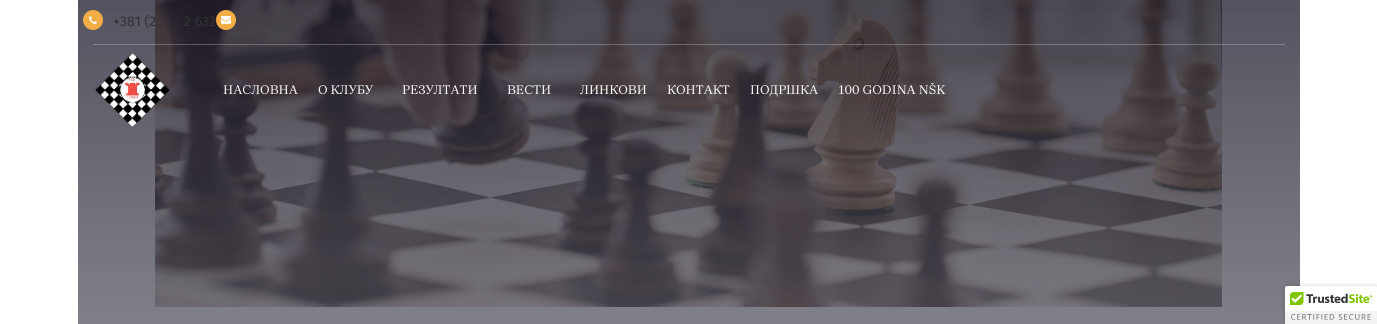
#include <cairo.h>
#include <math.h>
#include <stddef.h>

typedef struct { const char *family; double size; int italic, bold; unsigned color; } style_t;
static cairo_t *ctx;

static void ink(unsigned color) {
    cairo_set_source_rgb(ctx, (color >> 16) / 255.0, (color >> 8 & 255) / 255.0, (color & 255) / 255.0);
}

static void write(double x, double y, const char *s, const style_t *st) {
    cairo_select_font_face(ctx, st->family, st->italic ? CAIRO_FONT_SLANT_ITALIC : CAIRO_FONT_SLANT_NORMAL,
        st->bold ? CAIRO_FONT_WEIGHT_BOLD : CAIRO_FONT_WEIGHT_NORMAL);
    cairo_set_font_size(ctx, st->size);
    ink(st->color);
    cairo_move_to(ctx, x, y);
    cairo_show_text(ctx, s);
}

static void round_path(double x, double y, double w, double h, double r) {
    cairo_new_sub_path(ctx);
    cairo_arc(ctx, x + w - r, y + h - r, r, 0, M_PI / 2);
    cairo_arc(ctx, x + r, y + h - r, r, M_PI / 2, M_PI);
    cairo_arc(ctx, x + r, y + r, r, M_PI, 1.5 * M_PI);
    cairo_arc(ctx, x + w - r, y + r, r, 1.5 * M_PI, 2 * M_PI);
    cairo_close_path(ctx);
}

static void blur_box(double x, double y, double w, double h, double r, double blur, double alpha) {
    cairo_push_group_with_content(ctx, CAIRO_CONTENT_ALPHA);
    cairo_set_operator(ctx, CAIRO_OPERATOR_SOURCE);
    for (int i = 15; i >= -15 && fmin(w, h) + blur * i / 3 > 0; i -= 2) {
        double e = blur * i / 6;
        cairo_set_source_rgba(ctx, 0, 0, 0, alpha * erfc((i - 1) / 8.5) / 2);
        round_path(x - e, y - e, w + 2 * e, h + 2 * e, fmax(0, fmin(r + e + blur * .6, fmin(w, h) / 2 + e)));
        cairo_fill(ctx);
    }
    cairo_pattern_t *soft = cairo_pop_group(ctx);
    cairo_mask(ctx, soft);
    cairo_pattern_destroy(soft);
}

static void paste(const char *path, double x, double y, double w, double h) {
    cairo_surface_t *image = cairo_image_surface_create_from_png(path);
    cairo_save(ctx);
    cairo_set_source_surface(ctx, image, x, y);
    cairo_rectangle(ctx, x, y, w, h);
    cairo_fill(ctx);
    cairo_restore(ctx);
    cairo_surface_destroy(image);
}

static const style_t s1 = {"Fira Sans", 14, 0, 0, 0x333333};
static const style_t s2 = {"Brygada 1918", 13, 0, 0, 0xffffff};

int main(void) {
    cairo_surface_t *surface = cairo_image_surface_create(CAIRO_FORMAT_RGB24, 1377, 324);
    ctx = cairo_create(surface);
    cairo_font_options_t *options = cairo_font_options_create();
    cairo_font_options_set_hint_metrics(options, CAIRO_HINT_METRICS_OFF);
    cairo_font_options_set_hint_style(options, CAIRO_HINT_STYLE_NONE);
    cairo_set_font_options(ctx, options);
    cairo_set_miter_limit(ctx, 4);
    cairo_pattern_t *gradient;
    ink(0xffffff);
    cairo_paint(ctx);
    paste("pic1.png", 155, 0, 1067, 307);
    gradient = cairo_pattern_create_linear(689, 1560, 689, 0);
    cairo_pattern_add_color_stop_rgba(gradient, 0.11, 1, 1, 1, 0.63);
    cairo_pattern_add_color_stop_rgba(gradient, 1, 0.114, 0.11, 0.173, 0.76);
    cairo_set_source(ctx, gradient);
    cairo_pattern_destroy(gradient);
    cairo_rectangle(ctx, 78, 0, 1222, 324);
    cairo_fill(ctx);
    cairo_set_source_rgba(ctx, 1, 1, 1, 0.25);
    cairo_rectangle(ctx, 93, 44, 1192, 1);
    cairo_fill(ctx);
    paste("pic2.png", 83, 10, 20, 20);
    write(113, 26, "+381 (2", &s1);
    write(184, 26, "2 632", &s1);
    paste("pic3.png", 216, 10, 20, 20);
    paste("pic4.png", 95, 52, 75, 76);
    write(223, 94, "НАСЛОВНА", &s2);
    write(318, 94, "О КЛУБУ", &s2);
    write(402, 94, "РЕЗУЛТАТИ", &s2);
    write(507, 94, "ВЕСТИ", &s2);
    write(580, 94, "ЛИНКОВИ", &s2);
    write(667, 94, "КОНТАКТ", &s2);
    write(750, 94, "ПОДРШКА", &s2);
    write(838, 94, "100 GODINA NŠK", &s2);
    ink(0x000000);
    blur_box(1285, 286, 92, 38, 2, 2.5, 0.2);
    ink(0xffffff);
    cairo_new_path(ctx);
    cairo_move_to(ctx, 1287, 286);
    cairo_line_to(ctx, 1377, 286);
    cairo_line_to(ctx, 1377, 324);
    cairo_line_to(ctx, 1285, 324);
    cairo_line_to(ctx, 1285, 288);
    cairo_curve_to(ctx, 1285, 287, 1286, 286, 1287, 286);
    cairo_close_path(ctx);
    cairo_fill(ctx);
    paste("pic5.png", 1285, 286, 92, 38);
    cairo_surface_write_to_png(surface, "screenshot.png");
    cairo_font_options_destroy(options);
    cairo_destroy(ctx);
    cairo_surface_destroy(surface);
    return 0;
}
